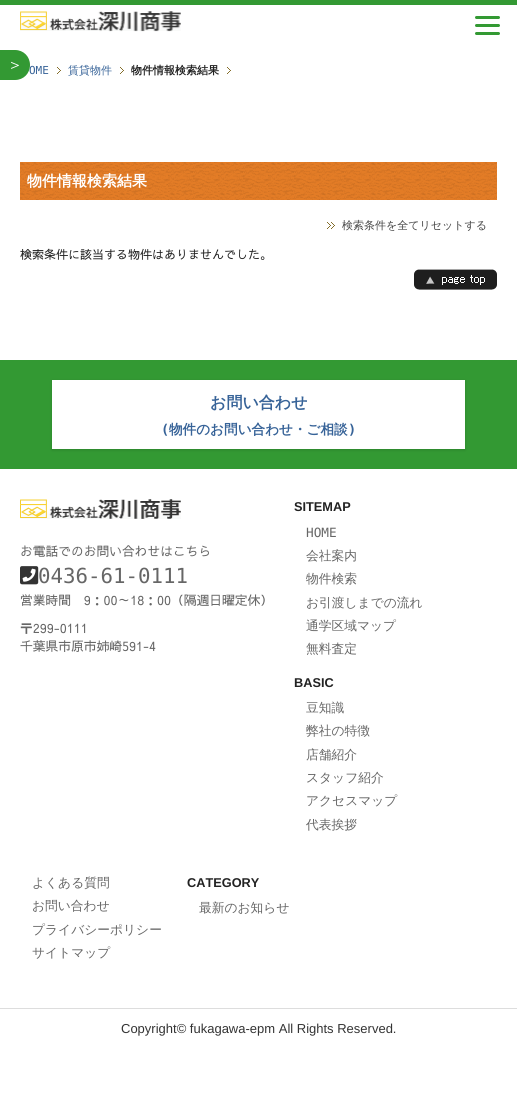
#include <cairo.h>
#include <math.h>
#include <stddef.h>

typedef struct { const char *family; double size; int italic, bold; unsigned color; } style_t;
static cairo_t *ctx;

static void ink(unsigned color) {
    cairo_set_source_rgb(ctx, (color >> 16) / 255.0, (color >> 8 & 255) / 255.0, (color & 255) / 255.0);
}

static void write(double x, double y, const char *s, const style_t *st) {
    cairo_select_font_face(ctx, st->family, st->italic ? CAIRO_FONT_SLANT_ITALIC : CAIRO_FONT_SLANT_NORMAL,
        st->bold ? CAIRO_FONT_WEIGHT_BOLD : CAIRO_FONT_WEIGHT_NORMAL);
    cairo_set_font_size(ctx, st->size);
    ink(st->color);
    cairo_move_to(ctx, x, y);
    cairo_show_text(ctx, s);
}

static void block(double x, double y, double w, double h, unsigned color) {
    ink(color);
    cairo_rectangle(ctx, x, y, w, h);
    cairo_fill(ctx);
}

static void round_path(double x, double y, double w, double h, double r) {
    cairo_new_sub_path(ctx);
    cairo_arc(ctx, x + w - r, y + h - r, r, 0, M_PI / 2);
    cairo_arc(ctx, x + r, y + h - r, r, M_PI / 2, M_PI);
    cairo_arc(ctx, x + r, y + r, r, M_PI, 1.5 * M_PI);
    cairo_arc(ctx, x + w - r, y + r, r, 1.5 * M_PI, 2 * M_PI);
    cairo_close_path(ctx);
}

static void blur_box(double x, double y, double w, double h, double r, double blur, double alpha) {
    cairo_push_group_with_content(ctx, CAIRO_CONTENT_ALPHA);
    cairo_set_operator(ctx, CAIRO_OPERATOR_SOURCE);
    for (int i = 15; i >= -15 && fmin(w, h) + blur * i / 3 > 0; i -= 2) {
        double e = blur * i / 6;
        cairo_set_source_rgba(ctx, 0, 0, 0, alpha * erfc((i - 1) / 8.5) / 2);
        round_path(x - e, y - e, w + 2 * e, h + 2 * e, fmax(0, fmin(r + e + blur * .6, fmin(w, h) / 2 + e)));
        cairo_fill(ctx);
    }
    cairo_pattern_t *soft = cairo_pop_group(ctx);
    cairo_mask(ctx, soft);
    cairo_pattern_destroy(soft);
}

static void paste(const char *path, double x, double y, double w, double h) {
    cairo_surface_t *image = cairo_image_surface_create_from_png(path);
    cairo_save(ctx);
    cairo_set_source_surface(ctx, image, x, y);
    cairo_rectangle(ctx, x, y, w, h);
    cairo_fill(ctx);
    cairo_restore(ctx);
    cairo_surface_destroy(image);
}

static const style_t s1 = {"DejaVu Sans Mono", 11, 0, 0, 0x376398};
static const style_t s2 = {"WenQuanYi Zen Hei Medium", 16, 0, 0, 0xffffff};
static const style_t s3 = {"WenQuanYi Zen Hei", 15, 0, 1, 0xffffff};
static const style_t s4 = {"WenQuanYi Zen Hei Medium", 11, 0, 0, 0x444444};
static const style_t s5 = {"Sawarabi Gothic", 12, 0, 0, 0x222222};
static const style_t s6 = {"WenQuanYi Zen Hei Medium", 11, 0, 0, 0x376398};
static const style_t s7 = {"WenQuanYi Zen Hei", 11, 0, 1, 0x222222};
static const style_t s8 = {"WenQuanYi Zen Hei", 16, 0, 1, 0x376398};
static const style_t s9 = {"DejaVu Sans Mono", 13.6, 0, 1, 0x376398};
static const style_t s10 = {"WenQuanYi Zen Hei", 13.6, 0, 1, 0x376398};
static const style_t s11 = {"Sawarabi Gothic", 12.75, 0, 0, 0x666666};
static const style_t s12 = {"DejaVu Sans Mono", 20.75, 0, 0, 0x666666};
static const style_t s13 = {"Liberation Sans", 12.75, 0, 1, 0x222222};
static const style_t s14 = {"DejaVu Sans Mono", 12.75, 0, 0, 0x666666};
static const style_t s15 = {"WenQuanYi Zen Hei Medium", 12.75, 0, 0, 0x666666};
static const style_t s16 = {"Liberation Sans", 13, 0, 0, 0x333333};

int main(void) {
    cairo_surface_t *surface = cairo_image_surface_create(CAIRO_FORMAT_RGB24, 517, 1120);
    ctx = cairo_create(surface);
    cairo_font_options_t *options = cairo_font_options_create();
    cairo_font_options_set_hint_metrics(options, CAIRO_HINT_METRICS_OFF);
    cairo_font_options_set_hint_style(options, CAIRO_HINT_STYLE_NONE);
    cairo_set_font_options(ctx, options);
    cairo_set_miter_limit(ctx, 4);
    ink(0xffffff);
    cairo_paint(ctx);
    block(0, 0, 517, 5, 0x339933);
    paste("pic1.png", 20, 11, 161, 21);
    round_path(475, 24, 25, 3, 1.5);
    cairo_fill(ctx);
    round_path(475, 16, 25, 3, 1.5);
    cairo_fill(ctx);
    round_path(475, 32, 25, 3, 1.5);
    cairo_fill(ctx);
    write(29, 74, "OME", &s1);
    ink(0x339933);
    cairo_new_path(ctx);
    cairo_move_to(ctx, 0, 50);
    cairo_line_to(ctx, 15, 50);
    cairo_curve_to(ctx, 23.5, 50, 30, 56.5, 30, 65);
    cairo_curve_to(ctx, 30, 73.5, 23.5, 80, 15, 80);
    cairo_line_to(ctx, 0, 80);
    cairo_close_path(ctx);
    cairo_fill(ctx);
    write(7, 70, "＞", &s2);
    paste("pic2.png", 20, 162, 477, 38);
    write(27, 186, "物件情報検索結果", &s3);
    paste("pic3.png", 327, 222, 8, 7);
    write(342, 229, "検索条件を全てリセットする", &s4);
    write(20, 259, "検索条件に該当する物件はありませんでした。", &s5);
    paste("pic4.png", 414, 269, 83, 21);
    paste("pic5.png", 57, 67, 4, 7);
    paste("pic5.png", 120, 67, 4, 7);
    write(68, 74, "賃貸物件", &s6);
    paste("pic5.png", 227, 67, 4, 7);
    write(131, 74, "物件情報検索結果", &s7);
    block(0, 360, 517, 109, 0x339933);
    ink(0x000000);
    blur_box(52, 381, 413, 69, 0, 1.5, 0.15);
    block(52, 380, 413, 69, 0xffffff);
    write(210, 408, "お問い合わせ", &s8);
    write(161, 434, "(", &s9);
    write(169, 434, "物件のお問い合わせ・ご相談", &s10);
    write(348, 434, ")", &s9);
    block(0, 1008, 517, 1, 0xdddddd);
    paste("pic6.png", 20, 499, 161, 20);
    write(20, 556, "お電話でのお問い合わせはこちら", &s11);
    paste("pic7.png", 20, 566, 19, 19);
    write(38, 583, "0436-61-0111", &s12);
    write(20, 605, "営業時間　9：00～18：00（隔週日曜定休）", &s11);
    write(20, 633, "〒299-0111", &s11);
    write(20, 651, "千葉県市原市姉崎591-4", &s11);
    write(294, 511, "SITEMAP", &s13);
    write(306, 537, "HOME", &s14);
    write(306, 560, "会社案内", &s15);
    write(306, 583, "物件検索", &s15);
    write(306, 607, "お引渡しまでの流れ", &s15);
    write(306, 630, "通学区域マップ", &s15);
    write(306, 653, "無料査定", &s15);
    write(294, 687, "BASIC", &s13);
    write(306, 712, "豆知識", &s15);
    write(306, 735, "弊社の特徴", &s15);
    write(306, 759, "店舗紹介", &s15);
    write(306, 782, "スタッフ紹介", &s15);
    write(306, 805, "アクセスマップ", &s15);
    write(306, 829, "代表挨拶", &s15);
    write(32, 887, "よくある質問", &s15);
    write(32, 910, "お問い合わせ", &s15);
    write(32, 934, "プライバシーポリシー", &s15);
    write(32, 957, "サイトマップ", &s15);
    write(187, 887, "CATEGORY", &s13);
    write(199, 912, "最新のお知らせ", &s15);
    write(121, 1033, "Copyright© fukagawa-epm All Rights Reserved.", &s16);
    cairo_surface_write_to_png(surface, "screenshot.png");
    cairo_font_options_destroy(options);
    cairo_destroy(ctx);
    cairo_surface_destroy(surface);
    return 0;
}
